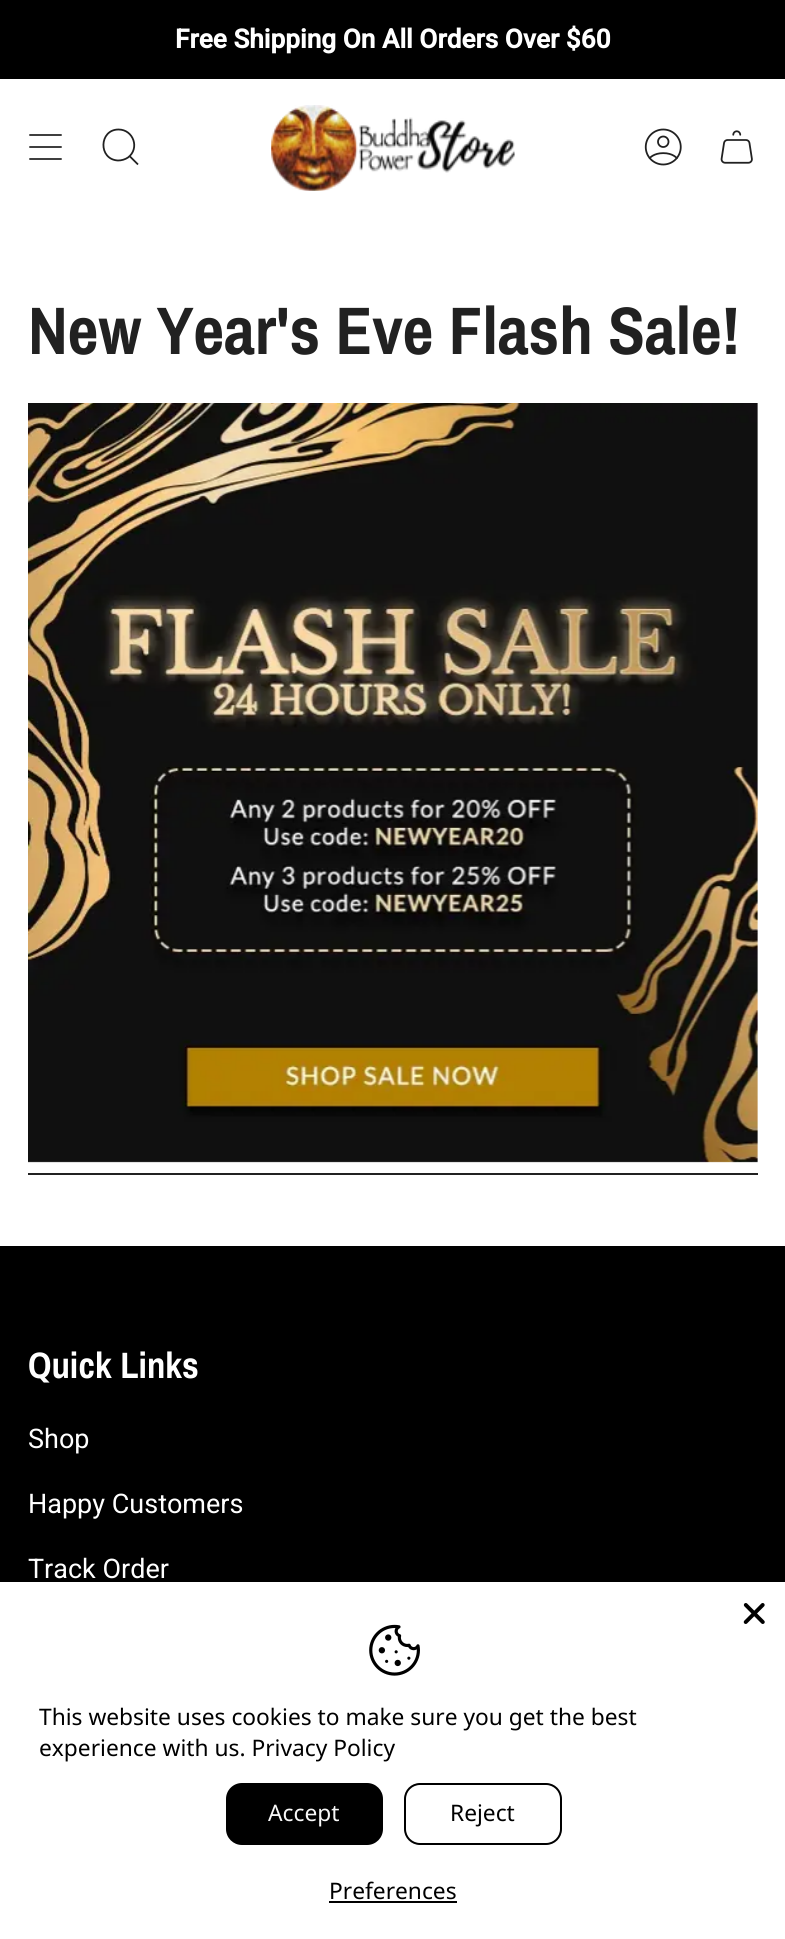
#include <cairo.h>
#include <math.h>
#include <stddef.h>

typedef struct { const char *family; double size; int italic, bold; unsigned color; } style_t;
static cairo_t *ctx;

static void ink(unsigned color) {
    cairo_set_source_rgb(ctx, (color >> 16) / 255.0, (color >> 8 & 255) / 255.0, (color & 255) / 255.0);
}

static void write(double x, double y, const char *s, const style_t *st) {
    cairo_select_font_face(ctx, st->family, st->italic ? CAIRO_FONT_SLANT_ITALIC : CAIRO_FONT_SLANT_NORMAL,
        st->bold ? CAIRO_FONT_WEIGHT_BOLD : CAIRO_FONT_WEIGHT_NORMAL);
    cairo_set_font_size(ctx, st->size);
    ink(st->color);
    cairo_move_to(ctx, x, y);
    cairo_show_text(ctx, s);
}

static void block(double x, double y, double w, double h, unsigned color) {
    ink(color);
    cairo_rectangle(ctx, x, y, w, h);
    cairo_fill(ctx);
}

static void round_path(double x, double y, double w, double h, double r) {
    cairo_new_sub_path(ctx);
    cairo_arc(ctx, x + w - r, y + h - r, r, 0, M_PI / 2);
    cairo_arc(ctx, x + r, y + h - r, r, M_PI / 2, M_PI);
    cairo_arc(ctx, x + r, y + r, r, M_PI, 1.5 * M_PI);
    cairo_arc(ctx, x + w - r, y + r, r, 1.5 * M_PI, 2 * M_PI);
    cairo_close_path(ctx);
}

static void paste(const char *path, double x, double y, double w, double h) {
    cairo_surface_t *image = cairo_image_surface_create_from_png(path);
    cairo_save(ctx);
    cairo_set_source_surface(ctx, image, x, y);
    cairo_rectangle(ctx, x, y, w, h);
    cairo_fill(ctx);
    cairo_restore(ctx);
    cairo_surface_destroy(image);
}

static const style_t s1 = {"Roboto", 26.25, 0, 1, 0xffffff};
static const style_t s2 = {"Archivo Narrow", 67.25, 0, 1, 0x212121};
static const style_t s3 = {"Archivo Narrow", 36.75, 0, 1, 0xffffff};
static const style_t s4 = {"Roboto", 27, 0, 0, 0xffffff};
static const style_t s5 = {"Noto Sans", 22.75, 0, 0, 0x000000};
static const style_t s6 = {"Noto Sans", 22.75, 0, 0, 0xf8f8f8};

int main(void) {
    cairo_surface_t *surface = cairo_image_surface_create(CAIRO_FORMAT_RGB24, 785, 1939);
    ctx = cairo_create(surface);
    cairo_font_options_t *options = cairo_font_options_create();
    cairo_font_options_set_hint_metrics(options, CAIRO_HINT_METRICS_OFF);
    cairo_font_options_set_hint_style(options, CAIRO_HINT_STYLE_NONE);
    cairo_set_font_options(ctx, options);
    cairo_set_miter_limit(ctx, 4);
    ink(0xffffff);
    cairo_paint(ctx);
    block(0, 0, 785, 79, 0x000000);
    write(175, 48, "Free Shipping On All Orders Over $60", &s1);
    cairo_new_path(ctx);
    cairo_move_to(ctx, 30, 135);
    cairo_line_to(ctx, 61, 135);
    cairo_move_to(ctx, 30, 147);
    cairo_line_to(ctx, 61, 147);
    cairo_move_to(ctx, 30, 159);
    cairo_line_to(ctx, 61, 159);
    ink(0x212121);
    cairo_set_line_width(ctx, 1.8);
    cairo_set_line_cap(ctx, CAIRO_LINE_CAP_ROUND);
    cairo_set_line_join(ctx, CAIRO_LINE_JOIN_ROUND);
    cairo_stroke(ctx);
    cairo_new_path(ctx);
    cairo_move_to(ctx, 118.5, 129.5);
    cairo_curve_to(ctx, 133.5, 129.5, 140, 148.5, 128, 157.5);
    cairo_curve_to(ctx, 125, 159.5, 121.5, 160.5, 118, 160.5);
    cairo_curve_to(ctx, 98, 159.5, 99, 129.5, 118.5, 129.5);
    cairo_close_path(ctx);
    cairo_move_to(ctx, 129.5, 156);
    cairo_line_to(ctx, 138, 164.5);
    cairo_set_line_cap(ctx, CAIRO_LINE_CAP_BUTT);
    cairo_set_line_join(ctx, CAIRO_LINE_JOIN_MITER);
    cairo_stroke(ctx);
    paste("pic1.png", 271, 105, 244, 86);
    paste("pic2.png", 644, 128, 38, 38);
    paste("pic3.png", 720, 130, 33, 34);
    write(28, 354, "New Year's Eve Flash Sale!", &s2);
    paste("pic4.png", 28, 403, 730, 760);
    block(28, 1173, 730, 2, 0x212121);
    block(0, 1246, 785, 336, 0x000000);
    write(28, 1378, "Quick Links", &s3);
    write(28, 1448, "Shop", &s4);
    write(28, 1513, "Happy Customers", &s4);
    write(28, 1578, "Track Order", &s4);
    paste("pic5.png", 743, 1603, 22, 21);
    paste("pic6.png", 369, 1624, 51, 52);
    write(39, 1725, "This website uses cookies to make sure you get the best", &s5);
    write(39, 1756, "experience with us. Privacy Policy", &s5);
    round_path(226, 1783, 157, 62, 16);
    cairo_fill(ctx);
    write(268, 1821, "Accept", &s6);
    round_path(405, 1784, 156, 60, 15);
    ink(0x000000);
    cairo_set_line_width(ctx, 2);
    cairo_stroke(ctx);
    write(450, 1821, "Reject", &s5);
    write(329, 1899, "Preferences", &s5);
    block(329, 1901, 128, 2, 0x000000);
    cairo_surface_write_to_png(surface, "screenshot.png");
    cairo_font_options_destroy(options);
    cairo_destroy(ctx);
    cairo_surface_destroy(surface);
    return 0;
}
